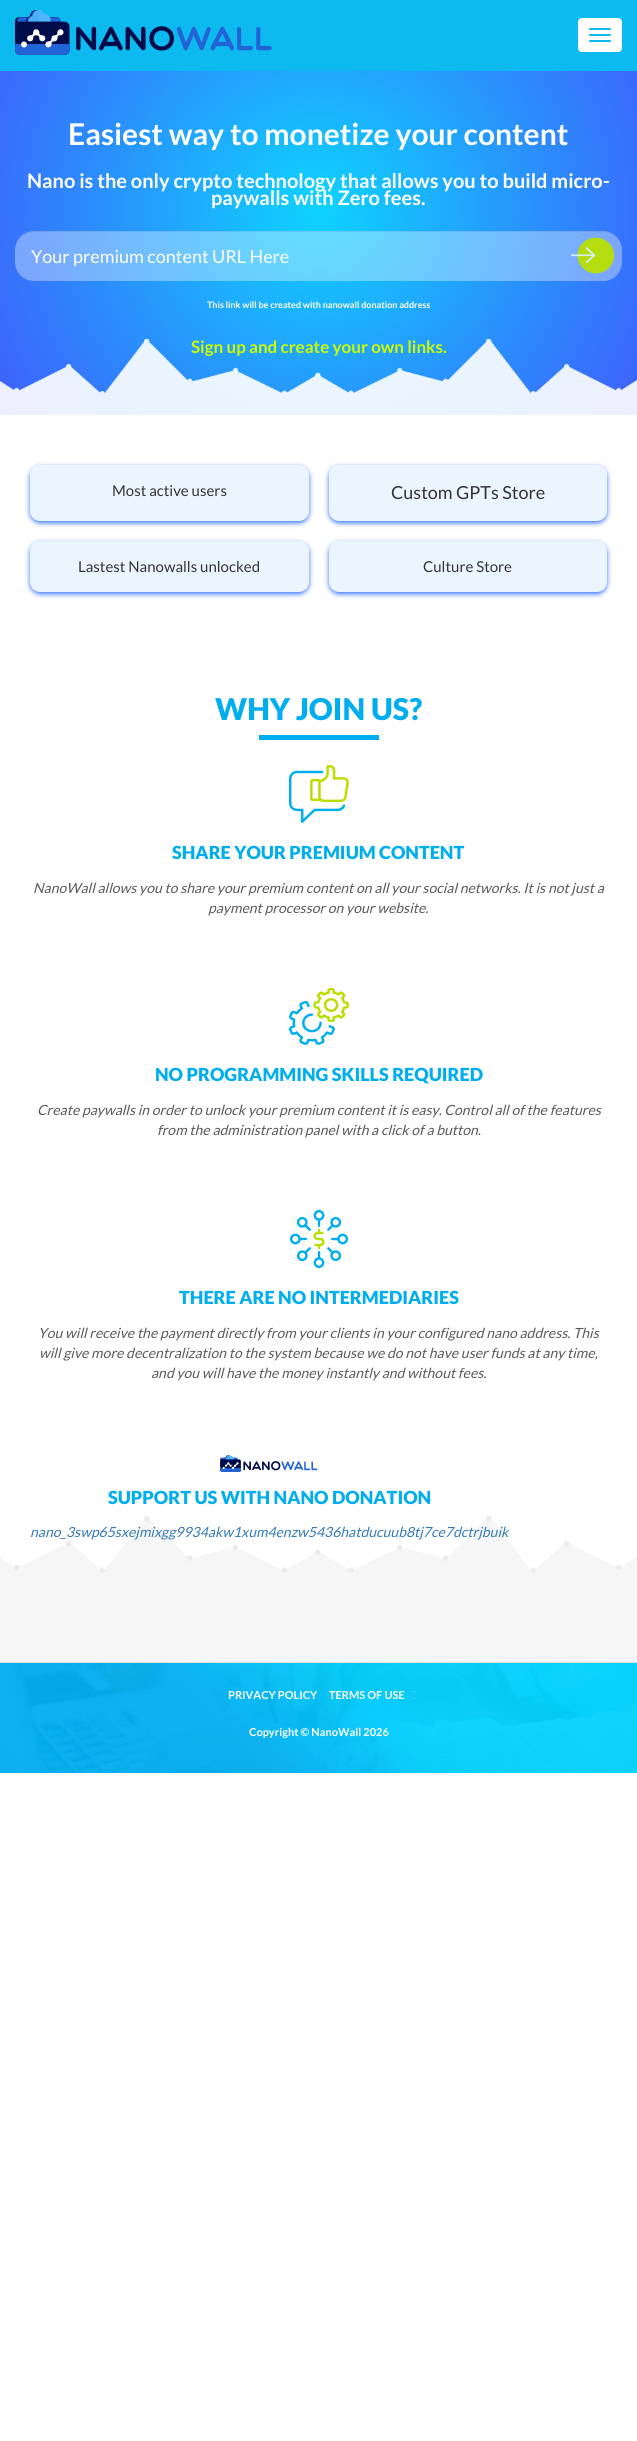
#include <cairo.h>
#include <math.h>
#include <stddef.h>

typedef struct { const char *family; double size; int italic, bold; unsigned color; } style_t;
static cairo_t *ctx;

static void ink(unsigned color) {
    cairo_set_source_rgb(ctx, (color >> 16) / 255.0, (color >> 8 & 255) / 255.0, (color & 255) / 255.0);
}

static void write(double x, double y, const char *s, const style_t *st) {
    cairo_select_font_face(ctx, st->family, st->italic ? CAIRO_FONT_SLANT_ITALIC : CAIRO_FONT_SLANT_NORMAL,
        st->bold ? CAIRO_FONT_WEIGHT_BOLD : CAIRO_FONT_WEIGHT_NORMAL);
    cairo_set_font_size(ctx, st->size);
    ink(st->color);
    cairo_move_to(ctx, x, y);
    cairo_show_text(ctx, s);
}

static void block(double x, double y, double w, double h, unsigned color) {
    ink(color);
    cairo_rectangle(ctx, x, y, w, h);
    cairo_fill(ctx);
}

static void round_path(double x, double y, double w, double h, double r) {
    cairo_new_sub_path(ctx);
    cairo_arc(ctx, x + w - r, y + h - r, r, 0, M_PI / 2);
    cairo_arc(ctx, x + r, y + h - r, r, M_PI / 2, M_PI);
    cairo_arc(ctx, x + r, y + r, r, M_PI, 1.5 * M_PI);
    cairo_arc(ctx, x + w - r, y + r, r, 1.5 * M_PI, 2 * M_PI);
    cairo_close_path(ctx);
}

static void blur_box(double x, double y, double w, double h, double r, double blur, double alpha) {
    cairo_push_group_with_content(ctx, CAIRO_CONTENT_ALPHA);
    cairo_set_operator(ctx, CAIRO_OPERATOR_SOURCE);
    for (int i = 15; i >= -15 && fmin(w, h) + blur * i / 3 > 0; i -= 2) {
        double e = blur * i / 6;
        cairo_set_source_rgba(ctx, 0, 0, 0, alpha * erfc((i - 1) / 8.5) / 2);
        round_path(x - e, y - e, w + 2 * e, h + 2 * e, fmax(0, fmin(r + e + blur * .6, fmin(w, h) / 2 + e)));
        cairo_fill(ctx);
    }
    cairo_pattern_t *soft = cairo_pop_group(ctx);
    cairo_mask(ctx, soft);
    cairo_pattern_destroy(soft);
}

static void paste(const char *path, double x, double y, double w, double h) {
    cairo_surface_t *image = cairo_image_surface_create_from_png(path);
    cairo_save(ctx);
    cairo_set_source_surface(ctx, image, x, y);
    cairo_rectangle(ctx, x, y, w, h);
    cairo_fill(ctx);
    cairo_restore(ctx);
    cairo_surface_destroy(image);
}

static const style_t s1 = {"Lato", 30, 0, 1, 0xffffff};
static const style_t s2 = {"Lato", 20, 0, 1, 0xffffff};
static const style_t s3 = {"Lato", 18, 0, 0, 0xffffff};
static const style_t s4 = {"Lato", 9, 0, 1, 0xffffff};
static const style_t s5 = {"Lato", 17, 0, 1, 0xcbfb00};
static const style_t s6 = {"Lato", 15, 0, 0, 0x333333};
static const style_t s7 = {"Lato", 18, 0, 0, 0x333333};
static const style_t s8 = {"Lato Black", 30, 0, 0, 0x00aeef};
static const style_t s9 = {"Lato Black", 18, 0, 0, 0x00aeef};
static const style_t s10 = {"Lato", 14, 1, 0, 0x5a5a5a};
static const style_t s11 = {"Lato", 14, 1, 0, 0x337ab7};
static const style_t s12 = {"Lato", 11, 0, 1, 0xffffff};

int main(void) {
    cairo_surface_t *surface = cairo_image_surface_create(CAIRO_FORMAT_RGB24, 637, 2441);
    ctx = cairo_create(surface);
    cairo_font_options_t *options = cairo_font_options_create();
    cairo_font_options_set_hint_metrics(options, CAIRO_HINT_METRICS_OFF);
    cairo_font_options_set_hint_style(options, CAIRO_HINT_STYLE_NONE);
    cairo_set_font_options(ctx, options);
    cairo_set_miter_limit(ctx, 4);
    cairo_pattern_t *gradient;
    ink(0xffffff);
    cairo_paint(ctx);
    block(0, 0, 637, 71, 0x0dbaf0);
    paste("pic1.png", 15, 10, 257, 45);
    ink(0xffffff);
    round_path(578.5, 18.5, 43, 33, 3.5);
    cairo_fill_preserve(ctx);
    cairo_set_line_width(ctx, 1);
    cairo_stroke(ctx);
    ink(0x0dbaf0);
    round_path(589, 28, 22, 2, 1);
    cairo_fill(ctx);
    round_path(589, 34, 22, 2, 1);
    cairo_fill(ctx);
    round_path(589, 40, 22, 2, 1);
    cairo_fill(ctx);
    gradient = cairo_pattern_create_radial(319, 208, 0, 319, 208, 380);
    cairo_pattern_add_color_stop_rgba(gradient, 0, 0.055, 0.827, 0.996, 1);
    cairo_pattern_add_color_stop_rgba(gradient, 1, 0.247, 0.369, 0.984, 1);
    cairo_set_source(ctx, gradient);
    cairo_pattern_destroy(gradient);
    cairo_rectangle(ctx, 0, 71, 637, 344);
    cairo_fill(ctx);
    paste("pic2.png", 0, 339, 637, 76);
    write(68, 145, "Easiest way to monetize your content", &s1);
    write(27, 188, "Nano is the only crypto technology that allows you to build micro-", &s2);
    write(211, 205, "paywalls with Zero fees.", &s2);
    cairo_set_source_rgba(ctx, 1, 1, 1, 0.35);
    round_path(15, 231, 607, 50, 19);
    cairo_fill(ctx);
    cairo_set_source_rgba(ctx, 0, 0, 0, 0.07);
    cairo_new_path(ctx);
    cairo_move_to(ctx, 34, 232);
    cairo_line_to(ctx, 603, 232);
    cairo_curve_to(ctx, 613, 232, 622, 241, 622, 251);
    cairo_line_to(ctx, 622, 250);
    cairo_curve_to(ctx, 622, 240, 613, 231, 603, 231);
    cairo_line_to(ctx, 34, 231);
    cairo_curve_to(ctx, 24, 231, 15, 240, 15, 250);
    cairo_line_to(ctx, 15, 251);
    cairo_curve_to(ctx, 15, 241, 24, 232, 34, 232);
    cairo_close_path(ctx);
    cairo_fill(ctx);
    write(31, 263, "Your premium content URL Here", &s3);
    paste("pic3.png", 571, 237, 44, 37);
    write(207, 308, "This link will be created with nanowall donation address", &s4);
    write(191, 353, "Sign up and create your own links.", &s5);
    ink(0x3672fb);
    blur_box(30, 467, 279, 56, 10, 2.5, 1);
    ink(0xeaf5ff);
    round_path(30, 465, 279, 56, 10);
    cairo_fill(ctx);
    write(112, 496, "Most active users", &s6);
    ink(0x3672fb);
    blur_box(329, 467, 278, 56, 10, 2.5, 1);
    ink(0xeaf5ff);
    round_path(329, 465, 278, 56, 10);
    cairo_fill(ctx);
    write(391, 499, "Custom GPTs Store", &s7);
    ink(0x3672fb);
    blur_box(30, 543, 279, 51, 10, 2.5, 1);
    ink(0xeaf5ff);
    round_path(30, 541, 279, 51, 10);
    cairo_fill(ctx);
    write(78, 572, "Lastest Nanowalls unlocked", &s6);
    ink(0x3672fb);
    blur_box(329, 543, 278, 51, 10, 2.5, 1);
    ink(0xeaf5ff);
    round_path(329, 541, 278, 51, 10);
    cairo_fill(ctx);
    write(423, 572, "Culture Store", &s6);
    paste("pic4.png", 0, 1516, 637, 146);
    write(215, 720, "WHY JOIN US?", &s8);
    block(259, 735, 120, 5, 0x00aeef);
    paste("pic5.png", 289, 765, 60, 58);
    write(172, 859, "SHARE YOUR PREMIUM CONTENT", &s9);
    write(33, 893, "NanoWall allows you to share your premium content on all your social networks. It is not just a", &s10);
    write(208, 913, "payment processor on your website.", &s10);
    paste("pic6.png", 289, 988, 60, 57);
    write(155, 1081, "NO PROGRAMMING SKILLS REQUIRED", &s9);
    write(37, 1115, "Create paywalls in order to unlock your premium content it is easy. Control all of the features", &s10);
    write(157, 1135, "from the administration panel with a click of a button.", &s10);
    paste("pic7.png", 290, 1210, 58, 58);
    write(179, 1304, "THERE ARE NO INTERMEDIARIES", &s9);
    write(38, 1338, "You will receive the payment directly from your clients in your configured nano address. This", &s10);
    write(39, 1358, "will give more decentralization to the system because we do not have user funds at any time,", &s10);
    write(151, 1378, "and you will have the money instantly and without fees.", &s10);
    paste("pic8.png", 220, 1455, 98, 17);
    write(108, 1504, "SUPPORT US WITH NANO DONATION", &s9);
    write(30, 1537, "nano_3swp65sxejmixgg9934akw1xum4enzw5436hatducuub8tj7ce7dctrjbuik", &s11);
    block(0, 1662, 637, 1, 0xe1e0e0);
    paste("pic9.png", 0, 1663, 637, 110);
    write(228, 1699, "PRIVACY POLICY", &s12);
    write(329, 1699, "TERMS OF USE", &s12);
    write(249, 1736, "Copyright © NanoWall 2026", &s12);
    cairo_surface_write_to_png(surface, "screenshot.png");
    cairo_font_options_destroy(options);
    cairo_destroy(ctx);
    cairo_surface_destroy(surface);
    return 0;
}
